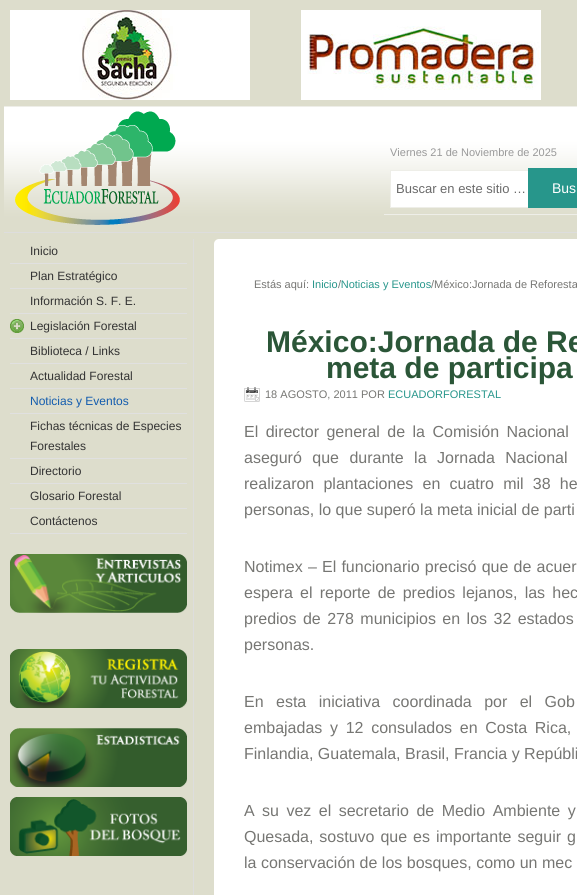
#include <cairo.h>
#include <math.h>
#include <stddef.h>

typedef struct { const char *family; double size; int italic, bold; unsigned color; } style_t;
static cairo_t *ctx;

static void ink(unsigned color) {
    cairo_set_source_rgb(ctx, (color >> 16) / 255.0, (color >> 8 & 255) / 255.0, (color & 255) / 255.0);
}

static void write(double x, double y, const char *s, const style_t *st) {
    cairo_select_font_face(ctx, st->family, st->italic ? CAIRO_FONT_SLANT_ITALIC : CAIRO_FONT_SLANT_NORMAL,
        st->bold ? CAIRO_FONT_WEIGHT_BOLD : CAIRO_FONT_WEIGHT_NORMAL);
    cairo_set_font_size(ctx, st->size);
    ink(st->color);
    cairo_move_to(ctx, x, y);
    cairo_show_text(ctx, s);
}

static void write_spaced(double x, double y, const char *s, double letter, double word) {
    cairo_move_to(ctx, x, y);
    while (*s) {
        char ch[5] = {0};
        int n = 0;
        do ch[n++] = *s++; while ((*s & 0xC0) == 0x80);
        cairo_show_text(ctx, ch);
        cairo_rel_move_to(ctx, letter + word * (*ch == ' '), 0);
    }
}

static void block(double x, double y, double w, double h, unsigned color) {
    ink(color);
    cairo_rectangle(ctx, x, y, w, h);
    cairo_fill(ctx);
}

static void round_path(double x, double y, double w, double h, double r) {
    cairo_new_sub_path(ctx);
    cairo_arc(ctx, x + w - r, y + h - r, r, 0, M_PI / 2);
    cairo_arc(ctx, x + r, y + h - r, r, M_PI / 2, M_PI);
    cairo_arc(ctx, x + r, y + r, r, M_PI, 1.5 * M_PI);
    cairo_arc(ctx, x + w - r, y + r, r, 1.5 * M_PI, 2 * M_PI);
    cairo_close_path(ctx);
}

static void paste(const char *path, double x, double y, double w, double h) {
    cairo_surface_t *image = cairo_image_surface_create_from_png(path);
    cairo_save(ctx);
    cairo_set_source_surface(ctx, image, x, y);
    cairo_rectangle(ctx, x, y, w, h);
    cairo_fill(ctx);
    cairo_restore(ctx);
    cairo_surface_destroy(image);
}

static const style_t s1 = {"Liberation Sans", 11, 0, 0, 0x999999};
static const style_t s2 = {"Liberation Sans", 13, 0, 0, 0x6a6a6a};
static const style_t s3 = {"Liberation Sans", 14, 0, 0, 0xffffff};
static const style_t s4 = {"Arimo", 12, 0, 0, 0x333333};
static const style_t s5 = {"Arimo", 12, 0, 0, 0x135cae};
static const style_t s6 = {"Liberation Sans", 11, 0, 0, 0x767673};
static const style_t s7 = {"Liberation Sans", 11, 0, 0, 0x27968b};
static const style_t s8 = {"Liberation Sans", 30, 0, 1, 0x2b5638};
static const style_t s9 = {"Liberation Sans", 16, 0, 0, 0x767673};

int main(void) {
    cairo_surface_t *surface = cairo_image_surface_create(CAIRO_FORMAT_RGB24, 577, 895);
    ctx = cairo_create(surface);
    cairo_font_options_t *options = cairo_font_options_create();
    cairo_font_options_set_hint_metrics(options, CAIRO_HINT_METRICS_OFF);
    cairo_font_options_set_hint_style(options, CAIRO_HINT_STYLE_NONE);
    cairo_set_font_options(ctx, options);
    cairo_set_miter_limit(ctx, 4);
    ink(0xddddcc);
    cairo_paint(ctx);
    block(4, 106, 573, 1, 0xeeeee8);
    paste("pic1.png", 10, 10, 240, 90);
    paste("pic2.png", 301, 10, 240, 90);
    paste("pic3.png", 4, 107, 573, 118);
    block(384, 214, 193, 1, 0xeeeee8);
    write(390, 156, "Viernes 21 de Noviembre de 2025", &s1);
    block(391, 171, 137, 36, 0xffffff);
    cairo_rectangle(ctx, 390.5, 170.5, 139, 37);
    ink(0xeeeee8);
    cairo_set_line_width(ctx, 1);
    cairo_stroke(ctx);
    write(396, 193, "Buscar en este sitio …", &s2);
    block(528, 168, 49, 40, 0x27968b);
    write(552, 193, "Bus", &s3);
    block(4, 232, 573, 1, 0xdddddd);
    block(193, 239, 1, 656, 0xdddddd);
    block(10, 263, 177, 1, 0xe0e0e0);
    write(30, 255, "Inicio", &s4);
    block(10, 288, 177, 1, 0xe0e0e0);
    write(30, 280, "Plan Estratégico", &s4);
    block(10, 313, 177, 1, 0xe0e0e0);
    write(30, 305, "Información S. F. E.", &s4);
    paste("pic4.png", 10, 319, 14, 14);
    block(10, 338, 177, 1, 0xe0e0e0);
    write(30, 330, "Legislación Forestal", &s4);
    block(10, 363, 177, 1, 0xe0e0e0);
    write(30, 355, "Biblioteca / Links", &s4);
    block(10, 388, 177, 1, 0xe0e0e0);
    write(30, 380, "Actualidad Forestal", &s4);
    block(10, 413, 177, 1, 0xe0e0e0);
    write(30, 405, "Noticias y Eventos", &s5);
    block(10, 458, 177, 1, 0xe0e0e0);
    write(30, 430, "Fichas técnicas de Especies", &s4);
    write(30, 450, "Forestales", &s4);
    block(10, 483, 177, 1, 0xe0e0e0);
    write(30, 475, "Directorio", &s4);
    block(10, 508, 177, 1, 0xe0e0e0);
    write(30, 500, "Glosario Forestal", &s4);
    block(10, 533, 177, 1, 0xe0e0e0);
    write(30, 525, "Contáctenos", &s4);
    paste("pic5.png", 10, 554, 177, 59);
    paste("pic6.png", 10, 649, 177, 59);
    paste("pic7.png", 10, 728, 177, 59);
    paste("pic8.png", 10, 797, 177, 59);
    ink(0xffffff);
    round_path(214, 239, 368, 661, 5);
    cairo_fill(ctx);
    write(254, 288, "Estás aquí:", &s6);
    write(312, 288, "Inicio Noticias y Eventos", &s7);
    write(431, 288, "/México:Jornada de Reforesta", &s6);
    write(338, 288, "/", &s6);
    write(266, 352, "México:Jornada de Re", &s8);
    write(326, 378, "meta de participa", &s8);
    paste("pic9.png", 244, 387, 16, 15);
    write(265, 398, "18 AGOSTO, 2011 POR", &s6);
    write(388, 398, "ECUADORFORESTAL", &s7);
    cairo_set_font_size(ctx, 16);
    ink(0x767673);
    write_spaced(244, 437, "El director general de la Comisión Nacional", 0, 3);
    write_spaced(244, 463, "aseguró que durante la Jornada Nacional", 0, 6);
    write_spaced(244, 489, "realizaron plantaciones en cuatro mil 38 he", 0, 4.75);
    write(244, 515, "personas, lo que superó la meta inicial de parti", &s9);
    write_spaced(244, 572, "Notimex – El funcionario precisó que de acuer", 0, 0.75);
    write_spaced(244, 598, "espera el reporte de predios lejanos, las hec", 0, 2.75);
    write_spaced(244, 624, "predios de 278 municipios en los 32 estados", 0, 2);
    write(244, 650, "personas.", &s9);
    write_spaced(244, 707, "En esta iniciativa coordinada por el Gob", 0, 8);
    write_spaced(244, 733, "embajadas y 12 consulados en Costa Rica,", 0, 3.25);
    write(244, 759, "Finlandia, Guatemala, Brasil, Francia y Repúbli", &s9);
    write_spaced(244, 816, "A su vez el secretario de Medio Ambiente y", 0, 3);
    write_spaced(244, 842, "Quesada, sostuvo que es importante seguir g", 0, 1.5);
    write(244, 868, "la conservación de los bosques, como un mec", &s9);
    cairo_surface_write_to_png(surface, "screenshot.png");
    cairo_font_options_destroy(options);
    cairo_destroy(ctx);
    cairo_surface_destroy(surface);
    return 0;
}
